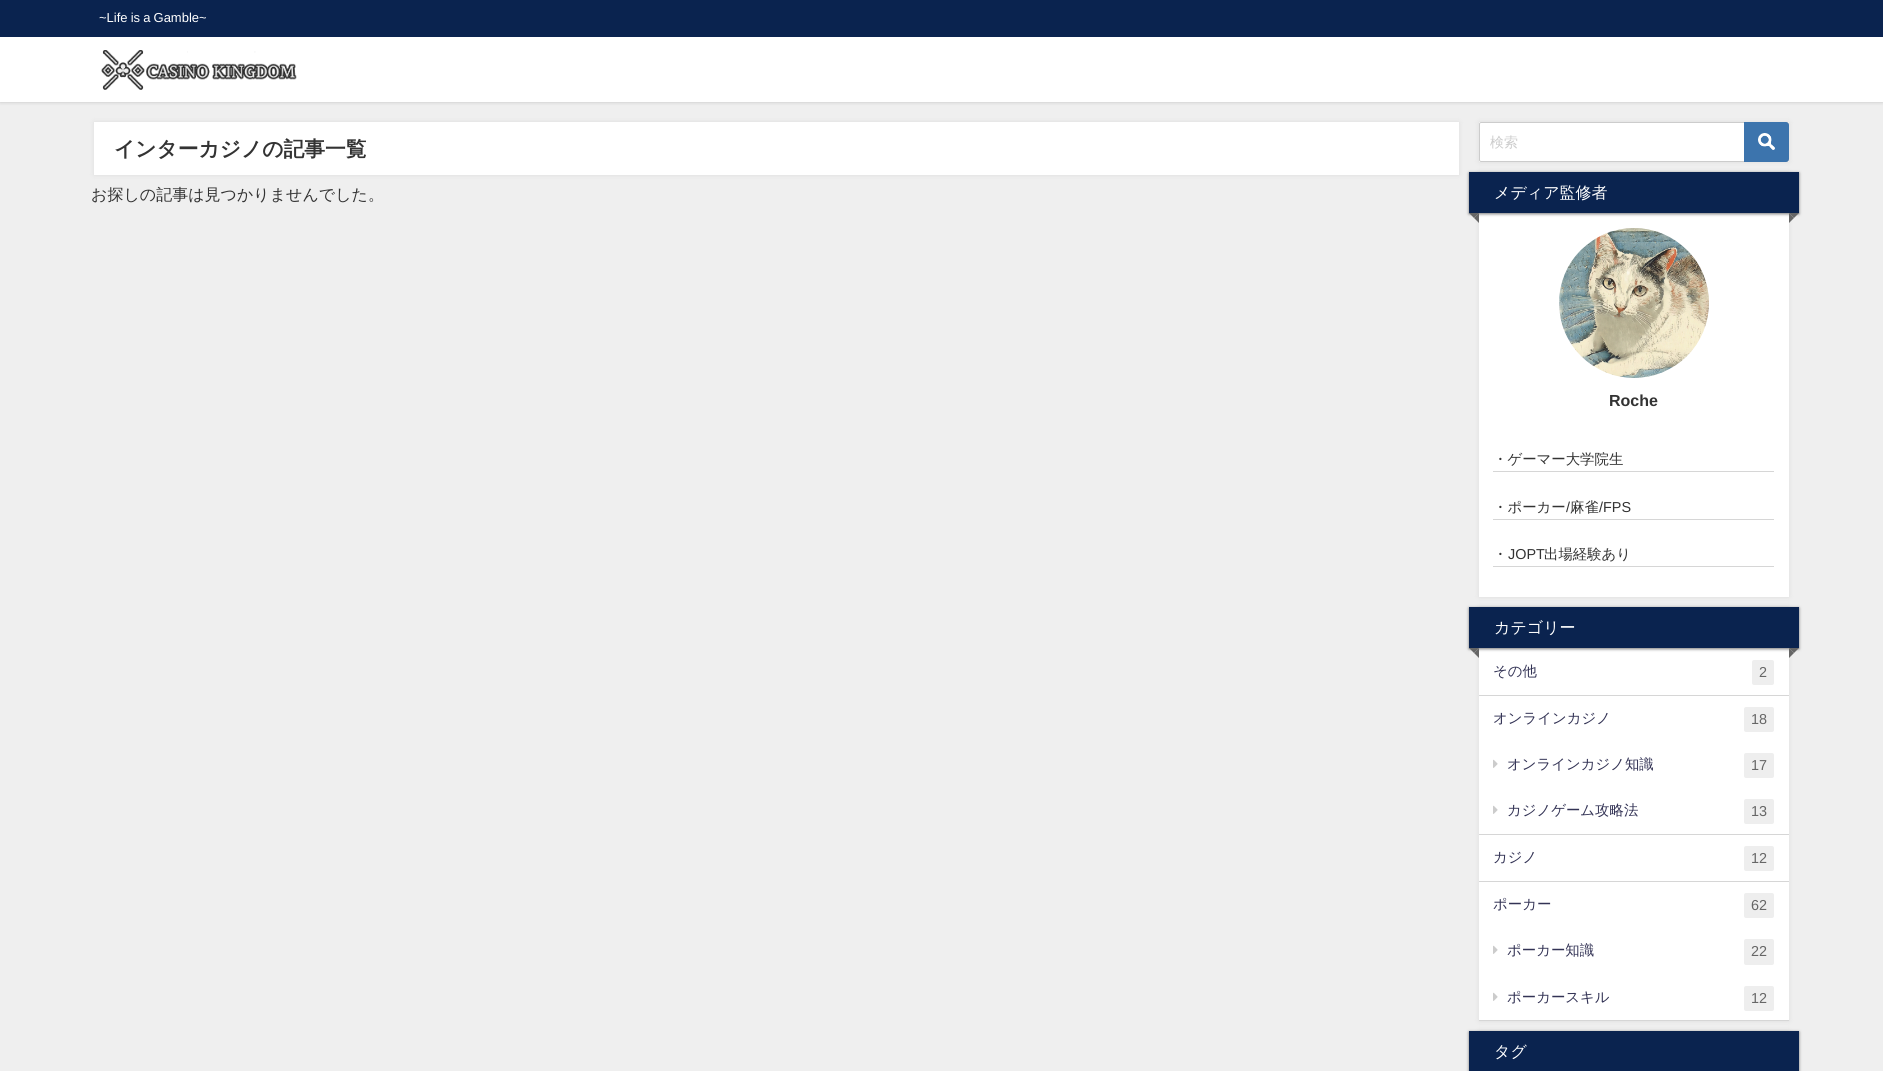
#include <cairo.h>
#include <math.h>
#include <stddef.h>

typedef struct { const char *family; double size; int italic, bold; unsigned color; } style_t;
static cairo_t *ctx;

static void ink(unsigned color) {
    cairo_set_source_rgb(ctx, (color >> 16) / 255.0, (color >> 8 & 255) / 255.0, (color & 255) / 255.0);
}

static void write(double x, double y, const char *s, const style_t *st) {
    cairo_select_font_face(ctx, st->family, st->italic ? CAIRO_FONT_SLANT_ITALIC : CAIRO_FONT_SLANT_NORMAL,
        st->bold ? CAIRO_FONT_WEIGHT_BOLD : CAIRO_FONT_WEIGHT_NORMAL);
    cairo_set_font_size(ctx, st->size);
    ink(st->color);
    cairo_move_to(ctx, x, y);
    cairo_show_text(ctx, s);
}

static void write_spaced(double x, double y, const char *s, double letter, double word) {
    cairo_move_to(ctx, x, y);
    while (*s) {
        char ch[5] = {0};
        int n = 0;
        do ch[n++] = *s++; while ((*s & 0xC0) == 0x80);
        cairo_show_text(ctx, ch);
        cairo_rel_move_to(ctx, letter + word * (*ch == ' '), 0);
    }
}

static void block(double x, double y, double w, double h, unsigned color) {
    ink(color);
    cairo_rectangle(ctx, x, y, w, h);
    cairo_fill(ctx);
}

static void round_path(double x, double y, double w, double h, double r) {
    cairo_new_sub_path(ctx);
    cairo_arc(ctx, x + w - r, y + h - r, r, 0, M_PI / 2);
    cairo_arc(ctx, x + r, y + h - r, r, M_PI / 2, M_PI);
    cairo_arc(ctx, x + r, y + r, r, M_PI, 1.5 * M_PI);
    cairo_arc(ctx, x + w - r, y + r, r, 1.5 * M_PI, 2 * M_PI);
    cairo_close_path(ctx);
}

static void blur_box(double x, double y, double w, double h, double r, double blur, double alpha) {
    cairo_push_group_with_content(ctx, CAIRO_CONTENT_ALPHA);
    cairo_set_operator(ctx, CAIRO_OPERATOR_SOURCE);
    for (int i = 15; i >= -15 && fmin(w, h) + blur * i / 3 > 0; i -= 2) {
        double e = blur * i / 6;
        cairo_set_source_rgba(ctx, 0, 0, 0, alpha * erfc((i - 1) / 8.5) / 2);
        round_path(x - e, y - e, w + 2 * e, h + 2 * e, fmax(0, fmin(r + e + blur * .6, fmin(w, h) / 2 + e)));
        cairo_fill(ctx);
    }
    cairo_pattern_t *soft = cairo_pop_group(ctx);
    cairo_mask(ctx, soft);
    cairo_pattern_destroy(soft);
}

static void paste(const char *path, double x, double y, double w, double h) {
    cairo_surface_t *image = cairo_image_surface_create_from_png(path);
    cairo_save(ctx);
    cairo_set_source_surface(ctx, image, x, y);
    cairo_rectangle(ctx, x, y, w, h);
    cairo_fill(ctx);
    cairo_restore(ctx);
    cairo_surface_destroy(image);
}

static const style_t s1 = {"WenQuanYi Zen Hei", 20.75, 0, 1, 0x333333};
static const style_t s2 = {"WenQuanYi Zen Hei Medium", 16, 0, 0, 0x333333};
static const style_t s3 = {"WenQuanYi Zen Hei Medium", 14, 0, 0, 0xcccccc};
static const style_t s4 = {"WenQuanYi Zen Hei Medium", 16, 0, 0, 0xffffff};
static const style_t s5 = {"Liberation Sans", 16, 0, 1, 0x333333};
static const style_t s6 = {"WenQuanYi Zen Hei Medium", 14.4, 0, 0, 0x333333};
static const style_t s7 = {"Liberation Sans", 14.4, 0, 0, 0x333333};
static const style_t s8 = {"WenQuanYi Zen Hei Medium", 14.4, 0, 0, 0x333355};
static const style_t s9 = {"Liberation Sans", 14.4, 0, 0, 0x666666};

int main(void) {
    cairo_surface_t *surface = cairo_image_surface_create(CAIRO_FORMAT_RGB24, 1883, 1071);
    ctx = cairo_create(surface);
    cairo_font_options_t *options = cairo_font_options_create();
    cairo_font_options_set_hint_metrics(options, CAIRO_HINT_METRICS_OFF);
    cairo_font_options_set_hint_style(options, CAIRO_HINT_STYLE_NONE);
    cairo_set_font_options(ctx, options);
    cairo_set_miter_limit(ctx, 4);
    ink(0xefefef);
    cairo_paint(ctx);
    ink(0x000000);
    blur_box(0, 0, 1883, 102, 0, 2, 0.2);
    block(0, 37, 1883, 65, 0xffffff);
    block(0, 0, 1883, 37, 0x0a234f);
    cairo_select_font_face(ctx, "Liberation Sans", CAIRO_FONT_SLANT_NORMAL, CAIRO_FONT_WEIGHT_NORMAL);
    cairo_set_font_size(ctx, 13);
    ink(0xffffff);
    write_spaced(99, 22, "~Life is a Gamble~", 0, -0.5);
    paste("pic1.png", 101, 50, 196, 40);
    ink(0x969696);
    blur_box(94, 122, 1365, 53, 0, 2.5, 0.2);
    block(94, 122, 1365, 53, 0xffffff);
    write(114, 156, "インターカジノの記事一覧", &s1);
    write(91, 200, "お探しの記事は見つかりませんでした。", &s2);
    ink(0x969696);
    blur_box(1479, 122, 310, 40, 0, 2.5, 0.2);
    block(1479, 122, 310, 40, 0xffffff);
    round_path(1479.5, 122.5, 309, 39, 1.5);
    ink(0xcccccc);
    cairo_set_line_width(ctx, 1);
    cairo_stroke(ctx);
    write(1490, 147, "検索", &s3);
    ink(0x3c74ad);
    cairo_new_path(ctx);
    cairo_move_to(ctx, 1744, 122);
    cairo_line_to(ctx, 1786, 122);
    cairo_curve_to(ctx, 1787.5, 122, 1789, 123.5, 1789, 125);
    cairo_line_to(ctx, 1789, 159);
    cairo_curve_to(ctx, 1789, 160.5, 1787.5, 162, 1786, 162);
    cairo_line_to(ctx, 1744, 162);
    cairo_close_path(ctx);
    cairo_fill(ctx);
    paste("pic2.png", 1758, 133, 17, 17);
    ink(0x969696);
    blur_box(1479, 172, 310, 425, 0, 2.5, 0.2);
    block(1479, 213, 310, 384, 0xffffff);
    ink(0x777777);
    blur_box(1469, 173, 330, 41, 0, 1.5, 1);
    block(1469, 172, 330, 41, 0x0a234f);
    write(1494, 198, "メディア監修者", &s4);
    ink(0x666666);
    cairo_new_path(ctx);
    cairo_move_to(ctx, 1469, 213);
    cairo_line_to(ctx, 1479, 213);
    cairo_line_to(ctx, 1474, 218);
    cairo_close_path(ctx);
    cairo_fill(ctx);
    cairo_new_path(ctx);
    cairo_move_to(ctx, 1479, 213);
    cairo_line_to(ctx, 1479, 223);
    cairo_line_to(ctx, 1474, 218);
    cairo_close_path(ctx);
    cairo_fill(ctx);
    cairo_new_path(ctx);
    cairo_move_to(ctx, 1789, 213);
    cairo_line_to(ctx, 1799, 213);
    cairo_line_to(ctx, 1794, 218);
    cairo_close_path(ctx);
    cairo_fill(ctx);
    cairo_new_path(ctx);
    cairo_move_to(ctx, 1789, 223);
    cairo_line_to(ctx, 1789, 213);
    cairo_line_to(ctx, 1794, 218);
    cairo_close_path(ctx);
    cairo_fill(ctx);
    paste("pic3.png", 1559, 228, 150, 150);
    write(1609, 406, "Roche", &s5);
    block(1493, 471, 281, 1, 0xd6d6d6);
    write(1493, 464, "・ゲーマー大学院生", &s6);
    block(1493, 519, 281, 1, 0xd6d6d6);
    write(1493, 512, "・ポーカー", &s6);
    write(1566, 512, "/", &s7);
    write(1570, 512, "麻雀", &s6);
    write(1599, 512, "/FPS", &s7);
    block(1493, 566, 281, 1, 0xd6d6d6);
    write(1493, 559, "・", &s6);
    write(1508, 559, "JOPT", &s7);
    write(1544, 559, "出場経験あり", &s6);
    ink(0x969696);
    blur_box(1479, 607, 310, 414, 0, 2.5, 0.2);
    block(1479, 648, 310, 372, 0xffffff);
    ink(0x777777);
    blur_box(1469, 608, 330, 41, 0, 1.5, 1);
    block(1469, 607, 330, 41, 0x0a234f);
    write(1494, 633, "カテゴリー", &s4);
    ink(0x666666);
    cairo_new_path(ctx);
    cairo_move_to(ctx, 1469, 648);
    cairo_line_to(ctx, 1479, 648);
    cairo_line_to(ctx, 1474, 653);
    cairo_close_path(ctx);
    cairo_fill(ctx);
    cairo_new_path(ctx);
    cairo_move_to(ctx, 1479, 648);
    cairo_line_to(ctx, 1479, 658);
    cairo_line_to(ctx, 1474, 653);
    cairo_close_path(ctx);
    cairo_fill(ctx);
    cairo_new_path(ctx);
    cairo_move_to(ctx, 1789, 648);
    cairo_line_to(ctx, 1799, 648);
    cairo_line_to(ctx, 1794, 653);
    cairo_close_path(ctx);
    cairo_fill(ctx);
    cairo_new_path(ctx);
    cairo_move_to(ctx, 1789, 658);
    cairo_line_to(ctx, 1789, 648);
    cairo_line_to(ctx, 1794, 653);
    cairo_close_path(ctx);
    cairo_fill(ctx);
    block(1479, 695, 310, 1, 0xd6d6d6);
    write(1493, 676, "その他", &s8);
    ink(0xeeeeee);
    round_path(1752, 660, 22, 25, 2);
    cairo_fill(ctx);
    write(1759, 677, "2", &s9);
    block(1479, 834, 310, 1, 0xd6d6d6);
    write(1493, 723, "オンラインカジノ", &s8);
    ink(0xeeeeee);
    round_path(1744, 707, 30, 25, 2);
    cairo_fill(ctx);
    write(1751, 724, "18", &s9);
    paste("pic4.png", 1493, 759, 5, 9);
    write(1507, 769, "オンラインカジノ知識", &s8);
    ink(0xeeeeee);
    round_path(1744, 753, 30, 25, 2);
    cairo_fill(ctx);
    write(1751, 770, "17", &s9);
    paste("pic4.png", 1493, 805, 5, 9);
    write(1507, 815, "カジノゲーム攻略法", &s8);
    ink(0xeeeeee);
    round_path(1744, 799, 30, 25, 2);
    cairo_fill(ctx);
    write(1751, 816, "13", &s9);
    block(1479, 881, 310, 1, 0xd6d6d6);
    write(1493, 862, "カジノ", &s8);
    ink(0xeeeeee);
    round_path(1744, 846, 30, 25, 2);
    cairo_fill(ctx);
    write(1751, 863, "12", &s9);
    block(1479, 1020, 310, 1, 0xd6d6d6);
    write(1493, 909, "ポーカー", &s8);
    ink(0xeeeeee);
    round_path(1744, 893, 30, 25, 2);
    cairo_fill(ctx);
    write(1751, 910, "62", &s9);
    paste("pic4.png", 1493, 945, 5, 9);
    write(1507, 955, "ポーカー知識", &s8);
    ink(0xeeeeee);
    round_path(1744, 939, 30, 26, 2);
    cairo_fill(ctx);
    write(1751, 956, "22", &s9);
    paste("pic4.png", 1493, 992, 5, 9);
    write(1507, 1002, "ポーカースキル", &s8);
    ink(0xeeeeee);
    round_path(1744, 986, 30, 25, 2);
    cairo_fill(ctx);
    write(1751, 1003, "12", &s9);
    ink(0x969696);
    blur_box(1479, 1031, 310, 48, 0, 2.5, 0.2);
    ink(0x777777);
    blur_box(1469, 1032, 330, 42, 0, 1.5, 1);
    block(1469, 1031, 330, 40, 0x0a234f);
    write(1494, 1057, "タグ", &s4);
    cairo_surface_write_to_png(surface, "screenshot.png");
    cairo_font_options_destroy(options);
    cairo_destroy(ctx);
    cairo_surface_destroy(surface);
    return 0;
}
